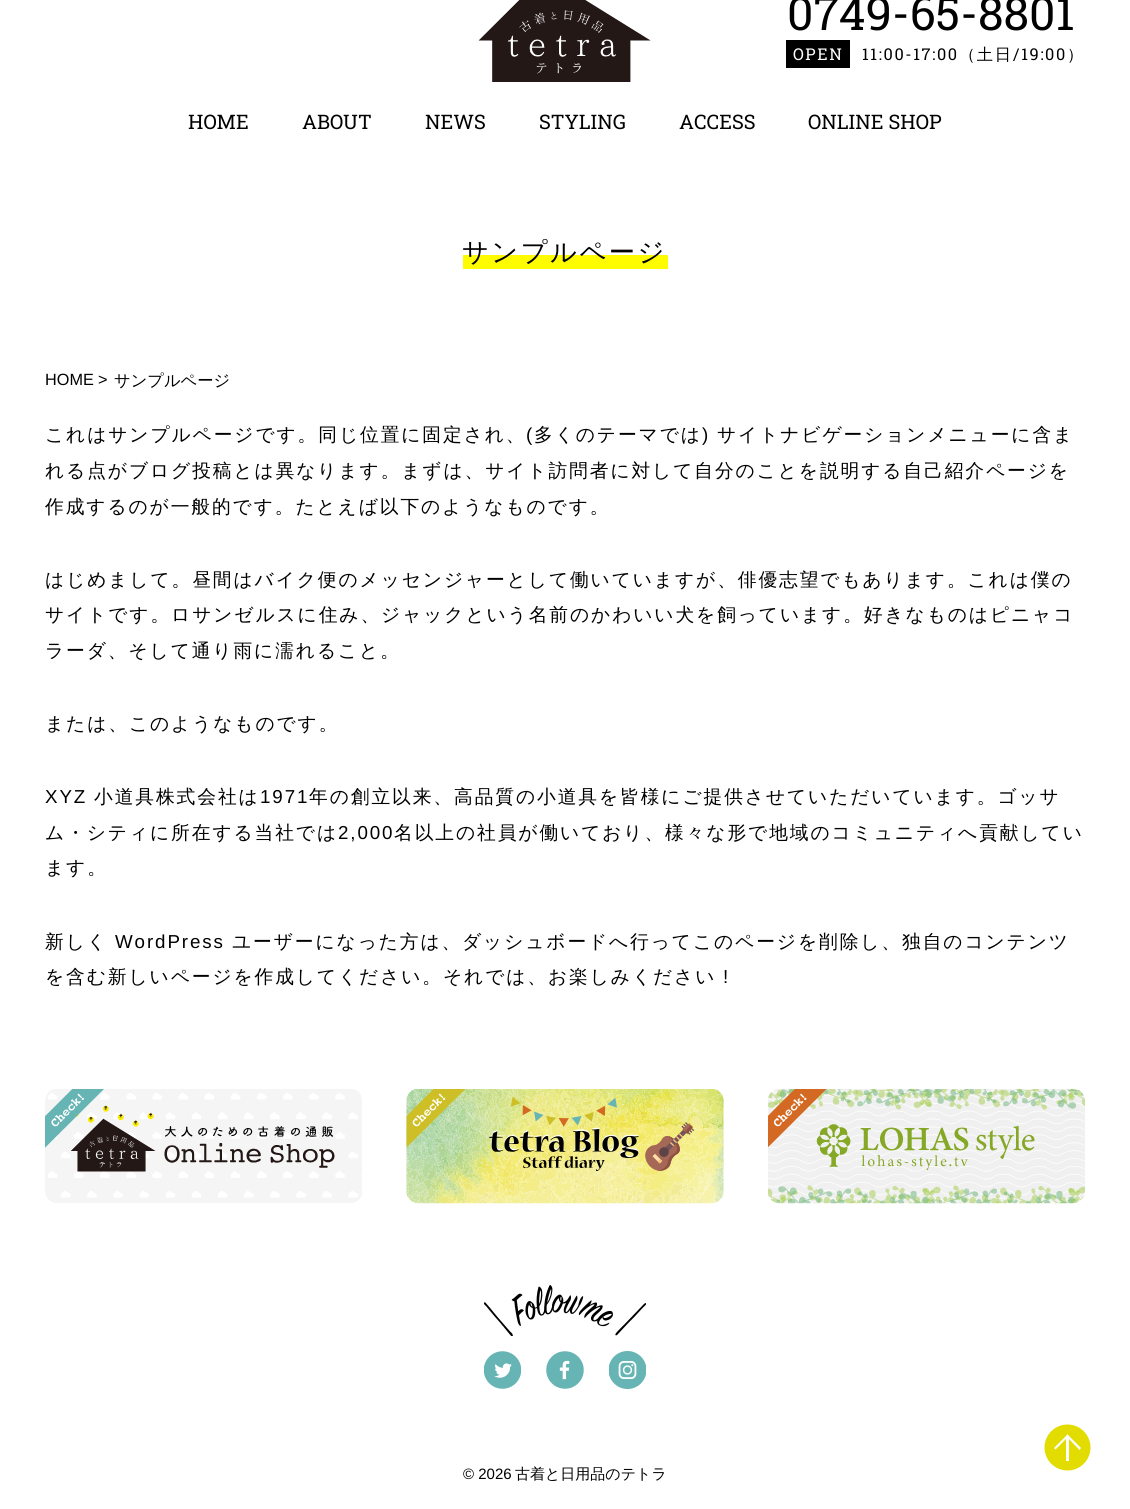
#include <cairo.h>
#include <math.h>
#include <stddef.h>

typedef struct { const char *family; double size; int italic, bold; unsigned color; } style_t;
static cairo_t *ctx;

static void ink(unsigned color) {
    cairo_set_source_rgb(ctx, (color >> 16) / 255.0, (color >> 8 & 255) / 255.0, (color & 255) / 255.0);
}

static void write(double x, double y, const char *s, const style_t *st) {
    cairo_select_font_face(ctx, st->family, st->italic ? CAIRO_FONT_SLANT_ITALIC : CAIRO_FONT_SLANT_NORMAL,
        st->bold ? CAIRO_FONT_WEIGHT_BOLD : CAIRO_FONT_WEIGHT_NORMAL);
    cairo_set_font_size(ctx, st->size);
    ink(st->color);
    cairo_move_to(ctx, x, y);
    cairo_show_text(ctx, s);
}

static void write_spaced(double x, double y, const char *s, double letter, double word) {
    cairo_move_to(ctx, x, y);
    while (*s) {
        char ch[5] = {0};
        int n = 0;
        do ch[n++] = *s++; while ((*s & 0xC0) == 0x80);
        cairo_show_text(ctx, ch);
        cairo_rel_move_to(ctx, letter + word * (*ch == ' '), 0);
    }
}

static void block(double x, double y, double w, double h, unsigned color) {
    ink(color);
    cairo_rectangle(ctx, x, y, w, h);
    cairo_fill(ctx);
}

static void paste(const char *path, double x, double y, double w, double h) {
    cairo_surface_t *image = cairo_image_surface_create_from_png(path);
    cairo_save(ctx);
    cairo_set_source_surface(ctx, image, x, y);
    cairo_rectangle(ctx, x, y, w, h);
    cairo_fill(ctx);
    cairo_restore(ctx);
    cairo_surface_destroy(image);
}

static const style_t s1 = {"Roboto Slab", 46.25, 0, 0, 0x000000};
static const style_t s2 = {"Roboto Slab", 20, 0, 0, 0x000000};
static const style_t s3 = {"Liberation Sans", 16.25, 0, 0, 0x000000};
static const style_t s4 = {"WenQuanYi Zen Hei Medium", 16.25, 0, 0, 0x000000};
static const style_t s5 = {"Liberation Sans", 15, 0, 0, 0x000000};
static const style_t s6 = {"WenQuanYi Zen Hei Medium", 15, 0, 0, 0x000000};

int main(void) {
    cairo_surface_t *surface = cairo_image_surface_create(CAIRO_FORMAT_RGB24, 1130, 1509);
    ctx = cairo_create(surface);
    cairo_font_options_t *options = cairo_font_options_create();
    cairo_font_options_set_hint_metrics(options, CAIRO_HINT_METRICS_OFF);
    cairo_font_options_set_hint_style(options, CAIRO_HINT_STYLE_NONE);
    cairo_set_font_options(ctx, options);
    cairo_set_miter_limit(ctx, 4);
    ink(0xffffff);
    cairo_paint(ctx);
    paste("pic1.png", 478, 0, 173, 82);
    write(787, 30, "0749-65-8801", &s1);
    block(786, 40, 64, 28, 0x000000);
    cairo_set_font_size(ctx, 16.25);
    ink(0xffffff);
    write_spaced(793, 60, "OPEN", 1.6, 0);
    ink(0x000000);
    write_spaced(862, 60, "11:00-17:00", 1.6, 0);
    cairo_select_font_face(ctx, "WenQuanYi Zen Hei Medium", CAIRO_FONT_SLANT_NORMAL, CAIRO_FONT_WEIGHT_NORMAL);
    write_spaced(959, 60, "（土日", 1.6, 0);
    cairo_select_font_face(ctx, "Roboto Slab", CAIRO_FONT_SLANT_NORMAL, CAIRO_FONT_WEIGHT_NORMAL);
    write_spaced(1013, 60, "/19:00", 1.6, 0);
    cairo_select_font_face(ctx, "WenQuanYi Zen Hei Medium", CAIRO_FONT_SLANT_NORMAL, CAIRO_FONT_WEIGHT_NORMAL);
    write_spaced(1067, 60, "）", 1.6, 0);
    write(188, 129, "HOME", &s2);
    write(302, 129, "ABOUT", &s2);
    write(425, 129, "NEWS", &s2);
    write(539, 129, "STYLING", &s2);
    write(679, 129, "ACCESS", &s2);
    write(808, 129, "ONLINE SHOP", &s2);
    block(463, 255, 205, 14, 0xfffc00);
    cairo_select_font_face(ctx, "WenQuanYi Zen Hei Medium", CAIRO_FONT_SLANT_NORMAL, CAIRO_FONT_WEIGHT_NORMAL);
    cairo_set_font_size(ctx, 26.25);
    ink(0x000000);
    write_spaced(462, 261, "サンプルページ", 2.5, 0);
    write(45, 385, "HOME", &s3);
    write(98, 385, ">", &s3);
    write(114, 386, "サンプルページ", &s4);
    cairo_set_font_size(ctx, 18.75);
    write_spaced(45, 441, "これはサンプルページです。同じ位置に固定され、", 1.9, 0);
    cairo_select_font_face(ctx, "Liberation Sans", CAIRO_FONT_SLANT_NORMAL, CAIRO_FONT_WEIGHT_NORMAL);
    write_spaced(526, 441, "(", 1.9, 0);
    cairo_select_font_face(ctx, "WenQuanYi Zen Hei Medium", CAIRO_FONT_SLANT_NORMAL, CAIRO_FONT_WEIGHT_NORMAL);
    write_spaced(534, 441, "多くのテーマでは", 1.9, 0);
    cairo_select_font_face(ctx, "Liberation Sans", CAIRO_FONT_SLANT_NORMAL, CAIRO_FONT_WEIGHT_NORMAL);
    write_spaced(702, 441, ")", 1.9, 0);
    cairo_select_font_face(ctx, "WenQuanYi Zen Hei Medium", CAIRO_FONT_SLANT_NORMAL, CAIRO_FONT_WEIGHT_NORMAL);
    write_spaced(717, 441, "サイトナビゲーションメニューに含ま", 1.9, 0);
    write_spaced(45, 477, "れる点がブログ投稿とは異なります。まずは、サイト訪問者に対して自分のことを説明する自己紹介ページを", 1.9, 0);
    write_spaced(45, 513, "作成するのが一般的です。たとえば以下のようなものです。", 1.9, 0);
    write_spaced(45, 586, "はじめまして。昼間はバイク便のメッセンジャーとして働いていますが、俳優志望でもあります。これは僕の", 1.9, 0);
    write_spaced(45, 621, "サイトです。ロサンゼルスに住み、ジャックという名前のかわいい犬を飼っています。好きなものはピニャコ", 1.9, 0);
    write_spaced(45, 657, "ラーダ、そして通り雨に濡れること。", 1.9, 0);
    write_spaced(45, 730, "または、このようなものです。", 1.9, 0);
    cairo_select_font_face(ctx, "Liberation Sans", CAIRO_FONT_SLANT_NORMAL, CAIRO_FONT_WEIGHT_NORMAL);
    write_spaced(45, 803, "XYZ", 1.9, 0);
    cairo_select_font_face(ctx, "WenQuanYi Zen Hei Medium", CAIRO_FONT_SLANT_NORMAL, CAIRO_FONT_WEIGHT_NORMAL);
    write_spaced(94, 803, "小道具株式会社は", 1.9, 0);
    cairo_select_font_face(ctx, "Liberation Sans", CAIRO_FONT_SLANT_NORMAL, CAIRO_FONT_WEIGHT_NORMAL);
    write_spaced(260, 803, "1971", 1.9, 0);
    cairo_select_font_face(ctx, "WenQuanYi Zen Hei Medium", CAIRO_FONT_SLANT_NORMAL, CAIRO_FONT_WEIGHT_NORMAL);
    write_spaced(309, 803, "年の創立以来、高品質の小道具を皆様にご提供させていただいています。ゴッサ", 1.9, 0);
    write_spaced(45, 839, "ム・シティに所在する当社では", 1.9, 0);
    cairo_select_font_face(ctx, "Liberation Sans", CAIRO_FONT_SLANT_NORMAL, CAIRO_FONT_WEIGHT_NORMAL);
    write_spaced(338, 839, "2,000", 1.9, 0);
    cairo_select_font_face(ctx, "WenQuanYi Zen Hei Medium", CAIRO_FONT_SLANT_NORMAL, CAIRO_FONT_WEIGHT_NORMAL);
    write_spaced(394, 839, "名以上の社員が働いており、様々な形で地域のコミュニティへ貢献してい", 1.9, 0);
    write_spaced(45, 874, "ます。", 1.9, 0);
    write_spaced(45, 948, "新しく", 1.9, 0);
    cairo_select_font_face(ctx, "Liberation Sans", CAIRO_FONT_SLANT_NORMAL, CAIRO_FONT_WEIGHT_NORMAL);
    write_spaced(115, 948, "WordPress", 1.9, 0);
    cairo_select_font_face(ctx, "WenQuanYi Zen Hei Medium", CAIRO_FONT_SLANT_NORMAL, CAIRO_FONT_WEIGHT_NORMAL);
    write_spaced(232, 948, "ユーザーになった方は、", 1.9, 0);
    write_spaced(462, 948, "ダッシュボード", 1.9, 0);
    write_spaced(609, 948, "へ行ってこのページを削除し、独自のコンテンツ", 1.9, 0);
    write_spaced(45, 983, "を含む新しいページを作成してください。それでは、お楽しみください", 1.9, 0);
    cairo_select_font_face(ctx, "Liberation Sans", CAIRO_FONT_SLANT_NORMAL, CAIRO_FONT_WEIGHT_NORMAL);
    write_spaced(723, 983, "!", 1.9, 0);
    paste("pic2.png", 45, 1089, 317, 114);
    paste("pic3.png", 406, 1089, 318, 115);
    paste("pic4.png", 768, 1089, 317, 115);
    paste("pic5.png", 484, 1285, 162, 51);
    paste("pic6.png", 484, 1351, 37, 38);
    paste("pic7.png", 546, 1351, 38, 38);
    paste("pic8.png", 609, 1351, 37, 38);
    ink(0xe2dc00);
    cairo_arc(ctx, 1067.5, 1447.5, 23, 0, 2 * M_PI);
    cairo_fill(ctx);
    block(1066, 1437, 3, 24, 0xffffff);
    cairo_new_path(ctx);
    cairo_move_to(ctx, 1066, 1436);
    cairo_line_to(ctx, 1067.5, 1434.5);
    cairo_line_to(ctx, 1081, 1448);
    cairo_line_to(ctx, 1079.5, 1450);
    cairo_close_path(ctx);
    cairo_fill(ctx);
    cairo_new_path(ctx);
    cairo_move_to(ctx, 1054, 1448);
    cairo_line_to(ctx, 1067.5, 1434.5);
    cairo_line_to(ctx, 1069, 1436);
    cairo_line_to(ctx, 1055.5, 1449.5);
    cairo_close_path(ctx);
    cairo_fill(ctx);
    write(463, 1479, "© 2026", &s5);
    write(515, 1479, "古着と日用品のテトラ", &s6);
    cairo_surface_write_to_png(surface, "screenshot.png");
    cairo_font_options_destroy(options);
    cairo_destroy(ctx);
    cairo_surface_destroy(surface);
    return 0;
}
